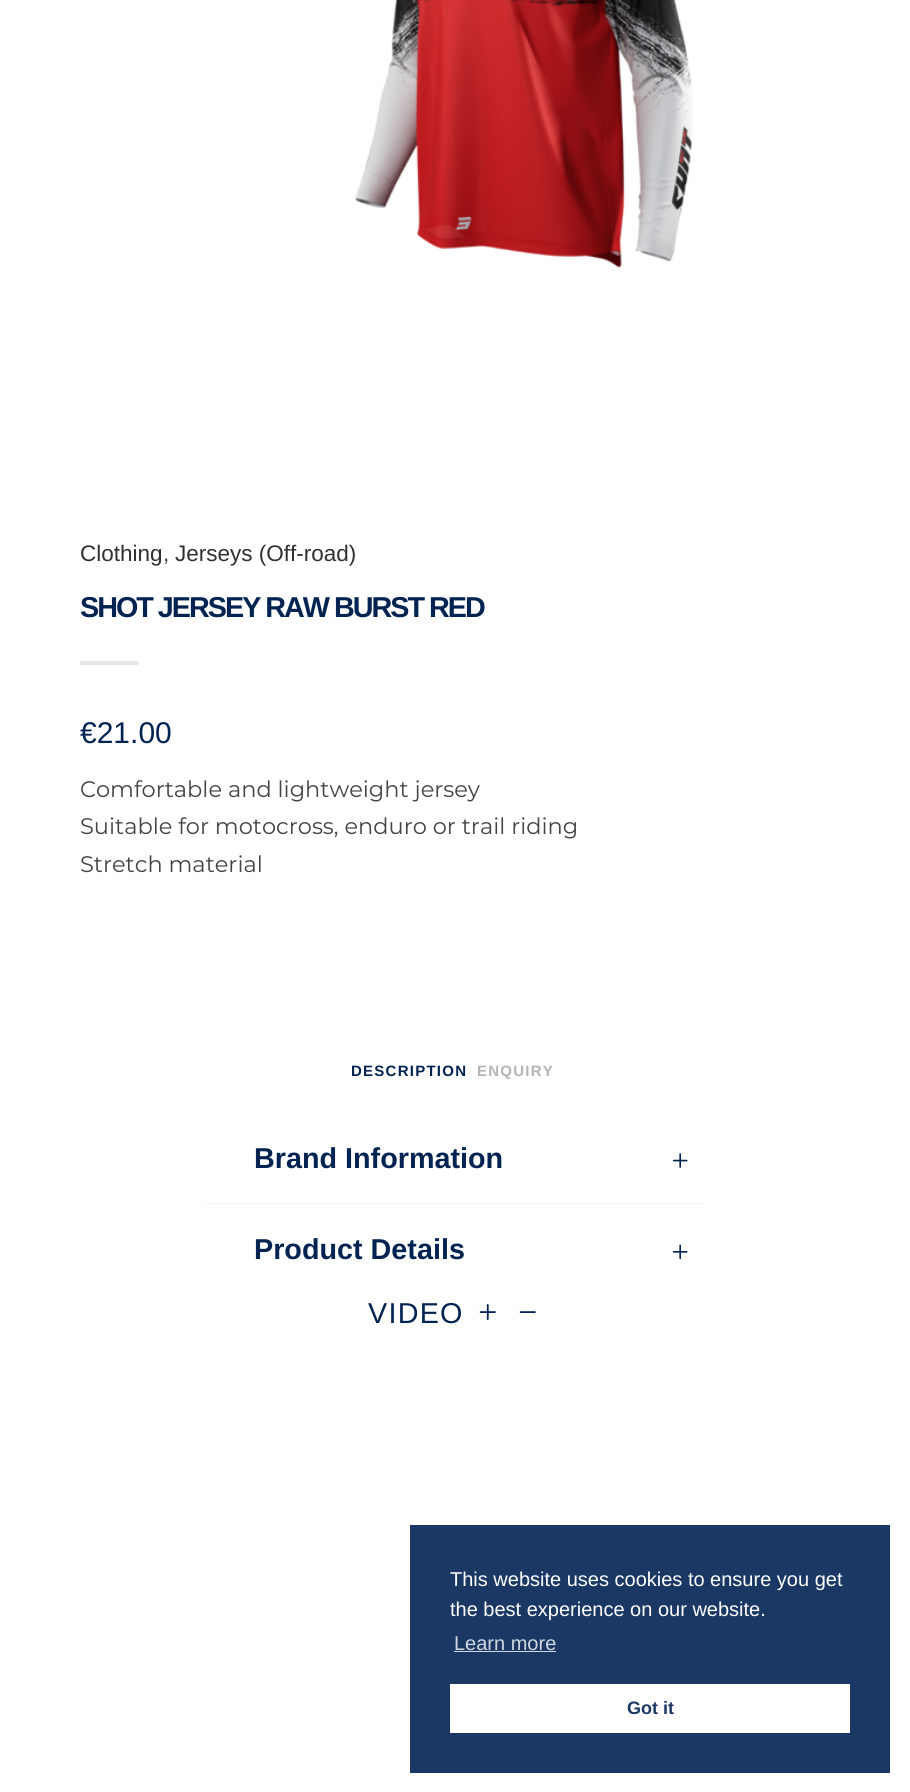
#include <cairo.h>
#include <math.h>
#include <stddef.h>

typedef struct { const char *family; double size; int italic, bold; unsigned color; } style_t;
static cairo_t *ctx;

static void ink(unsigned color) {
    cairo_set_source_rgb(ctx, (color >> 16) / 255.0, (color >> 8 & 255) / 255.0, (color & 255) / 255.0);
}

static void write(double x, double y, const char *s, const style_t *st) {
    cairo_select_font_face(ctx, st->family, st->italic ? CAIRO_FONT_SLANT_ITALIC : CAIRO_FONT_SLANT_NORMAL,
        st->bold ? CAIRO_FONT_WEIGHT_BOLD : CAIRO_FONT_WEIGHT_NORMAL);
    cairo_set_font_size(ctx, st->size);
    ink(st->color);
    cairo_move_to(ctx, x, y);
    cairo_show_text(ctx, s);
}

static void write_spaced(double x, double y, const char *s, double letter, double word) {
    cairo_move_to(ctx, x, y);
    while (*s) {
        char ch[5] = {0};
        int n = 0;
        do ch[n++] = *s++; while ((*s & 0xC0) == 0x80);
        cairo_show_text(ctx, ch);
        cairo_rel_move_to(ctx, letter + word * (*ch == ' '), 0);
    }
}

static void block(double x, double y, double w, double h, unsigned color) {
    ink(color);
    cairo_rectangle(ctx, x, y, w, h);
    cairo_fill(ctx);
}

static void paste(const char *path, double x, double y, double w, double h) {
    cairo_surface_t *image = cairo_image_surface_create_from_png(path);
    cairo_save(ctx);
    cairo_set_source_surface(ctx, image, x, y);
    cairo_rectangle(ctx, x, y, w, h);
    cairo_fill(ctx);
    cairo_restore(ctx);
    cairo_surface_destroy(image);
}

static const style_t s1 = {"Liberation Sans", 22.5, 0, 0, 0x303030};
static const style_t s2 = {"Liberation Sans", 22.5, 0, 0, 0x444444};
static const style_t s3 = {"Liberation Sans", 30, 0, 0, 0x012352};
static const style_t s4 = {"Montserrat", 22.5, 0, 0, 0x444444};
static const style_t s5 = {"Liberation Sans", 28.75, 0, 1, 0x012352};
static const style_t s6 = {"Liberation Sans", 20, 0, 0, 0xffffff};
static const style_t s7 = {"Liberation Sans", 20, 0, 0, 0xd1d7e0};
static const style_t s8 = {"Liberation Sans", 18, 0, 1, 0x1a3863};

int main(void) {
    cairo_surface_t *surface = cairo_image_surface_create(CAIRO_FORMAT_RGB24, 910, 1792);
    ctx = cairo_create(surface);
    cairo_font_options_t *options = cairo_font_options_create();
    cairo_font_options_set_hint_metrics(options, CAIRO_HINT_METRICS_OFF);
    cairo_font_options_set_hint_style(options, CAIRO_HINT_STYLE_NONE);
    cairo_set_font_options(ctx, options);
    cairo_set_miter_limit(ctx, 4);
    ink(0xffffff);
    cairo_paint(ctx);
    paste("pic1.png", 354, 0, 339, 268);
    write(80, 561, "Clothing", &s1);
    write(163, 561, ",", &s2);
    write(175, 561, "Jerseys (Off-road)", &s1);
    cairo_select_font_face(ctx, "Liberation Sans", CAIRO_FONT_SLANT_NORMAL, CAIRO_FONT_WEIGHT_BOLD);
    cairo_set_font_size(ctx, 28.75);
    ink(0x012352);
    write_spaced(80, 617, "SHOT JERSEY RAW BURST RED", -2, 0);
    block(80, 661, 58, 4, 0xe7e7e7);
    write(80, 743, "€21.00", &s3);
    write(80, 797, "Comfortable and lightweight jersey", &s4);
    write(80, 834, "Suitable for motocross, enduro or trail riding", &s4);
    write(80, 872, "Stretch material", &s4);
    cairo_select_font_face(ctx, "Liberation Sans", CAIRO_FONT_SLANT_NORMAL, CAIRO_FONT_WEIGHT_BOLD);
    cairo_set_font_size(ctx, 15);
    ink(0x012352);
    write_spaced(351, 1076, "DESCRIPTION", 1.25, 0);
    ink(0xb4b4b4);
    write_spaced(477, 1076, "ENQUIRY", 1.25, 0);
    block(204, 1203, 502, 1, 0xf4f4f4);
    write(254, 1168, "Brand Information", &s5);
    paste("pic2.png", 672, 1153, 16, 15);
    write(254, 1259, "Product Details", &s5);
    paste("pic3.png", 672, 1244, 16, 16);
    cairo_select_font_face(ctx, "Liberation Sans", CAIRO_FONT_SLANT_NORMAL, CAIRO_FONT_WEIGHT_NORMAL);
    write_spaced(368, 1323, "VIDEO", 1.25, 0);
    paste("pic4.png", 479, 1304, 17, 17);
    paste("pic5.png", 519, 1311, 17, 2);
    block(410, 1525, 480, 248, 0x1a3863);
    write(450, 1586, "This website uses cookies to ensure you get", &s6);
    write(450, 1616, "the best experience on our website.", &s6);
    write(454, 1650, "Learn more", &s7);
    block(454, 1651, 102, 1, 0xd1d7e0);
    block(450, 1684, 400, 49, 0xffffff);
    write(627, 1714, "Got it", &s8);
    cairo_surface_write_to_png(surface, "screenshot.png");
    cairo_font_options_destroy(options);
    cairo_destroy(ctx);
    cairo_surface_destroy(surface);
    return 0;
}
